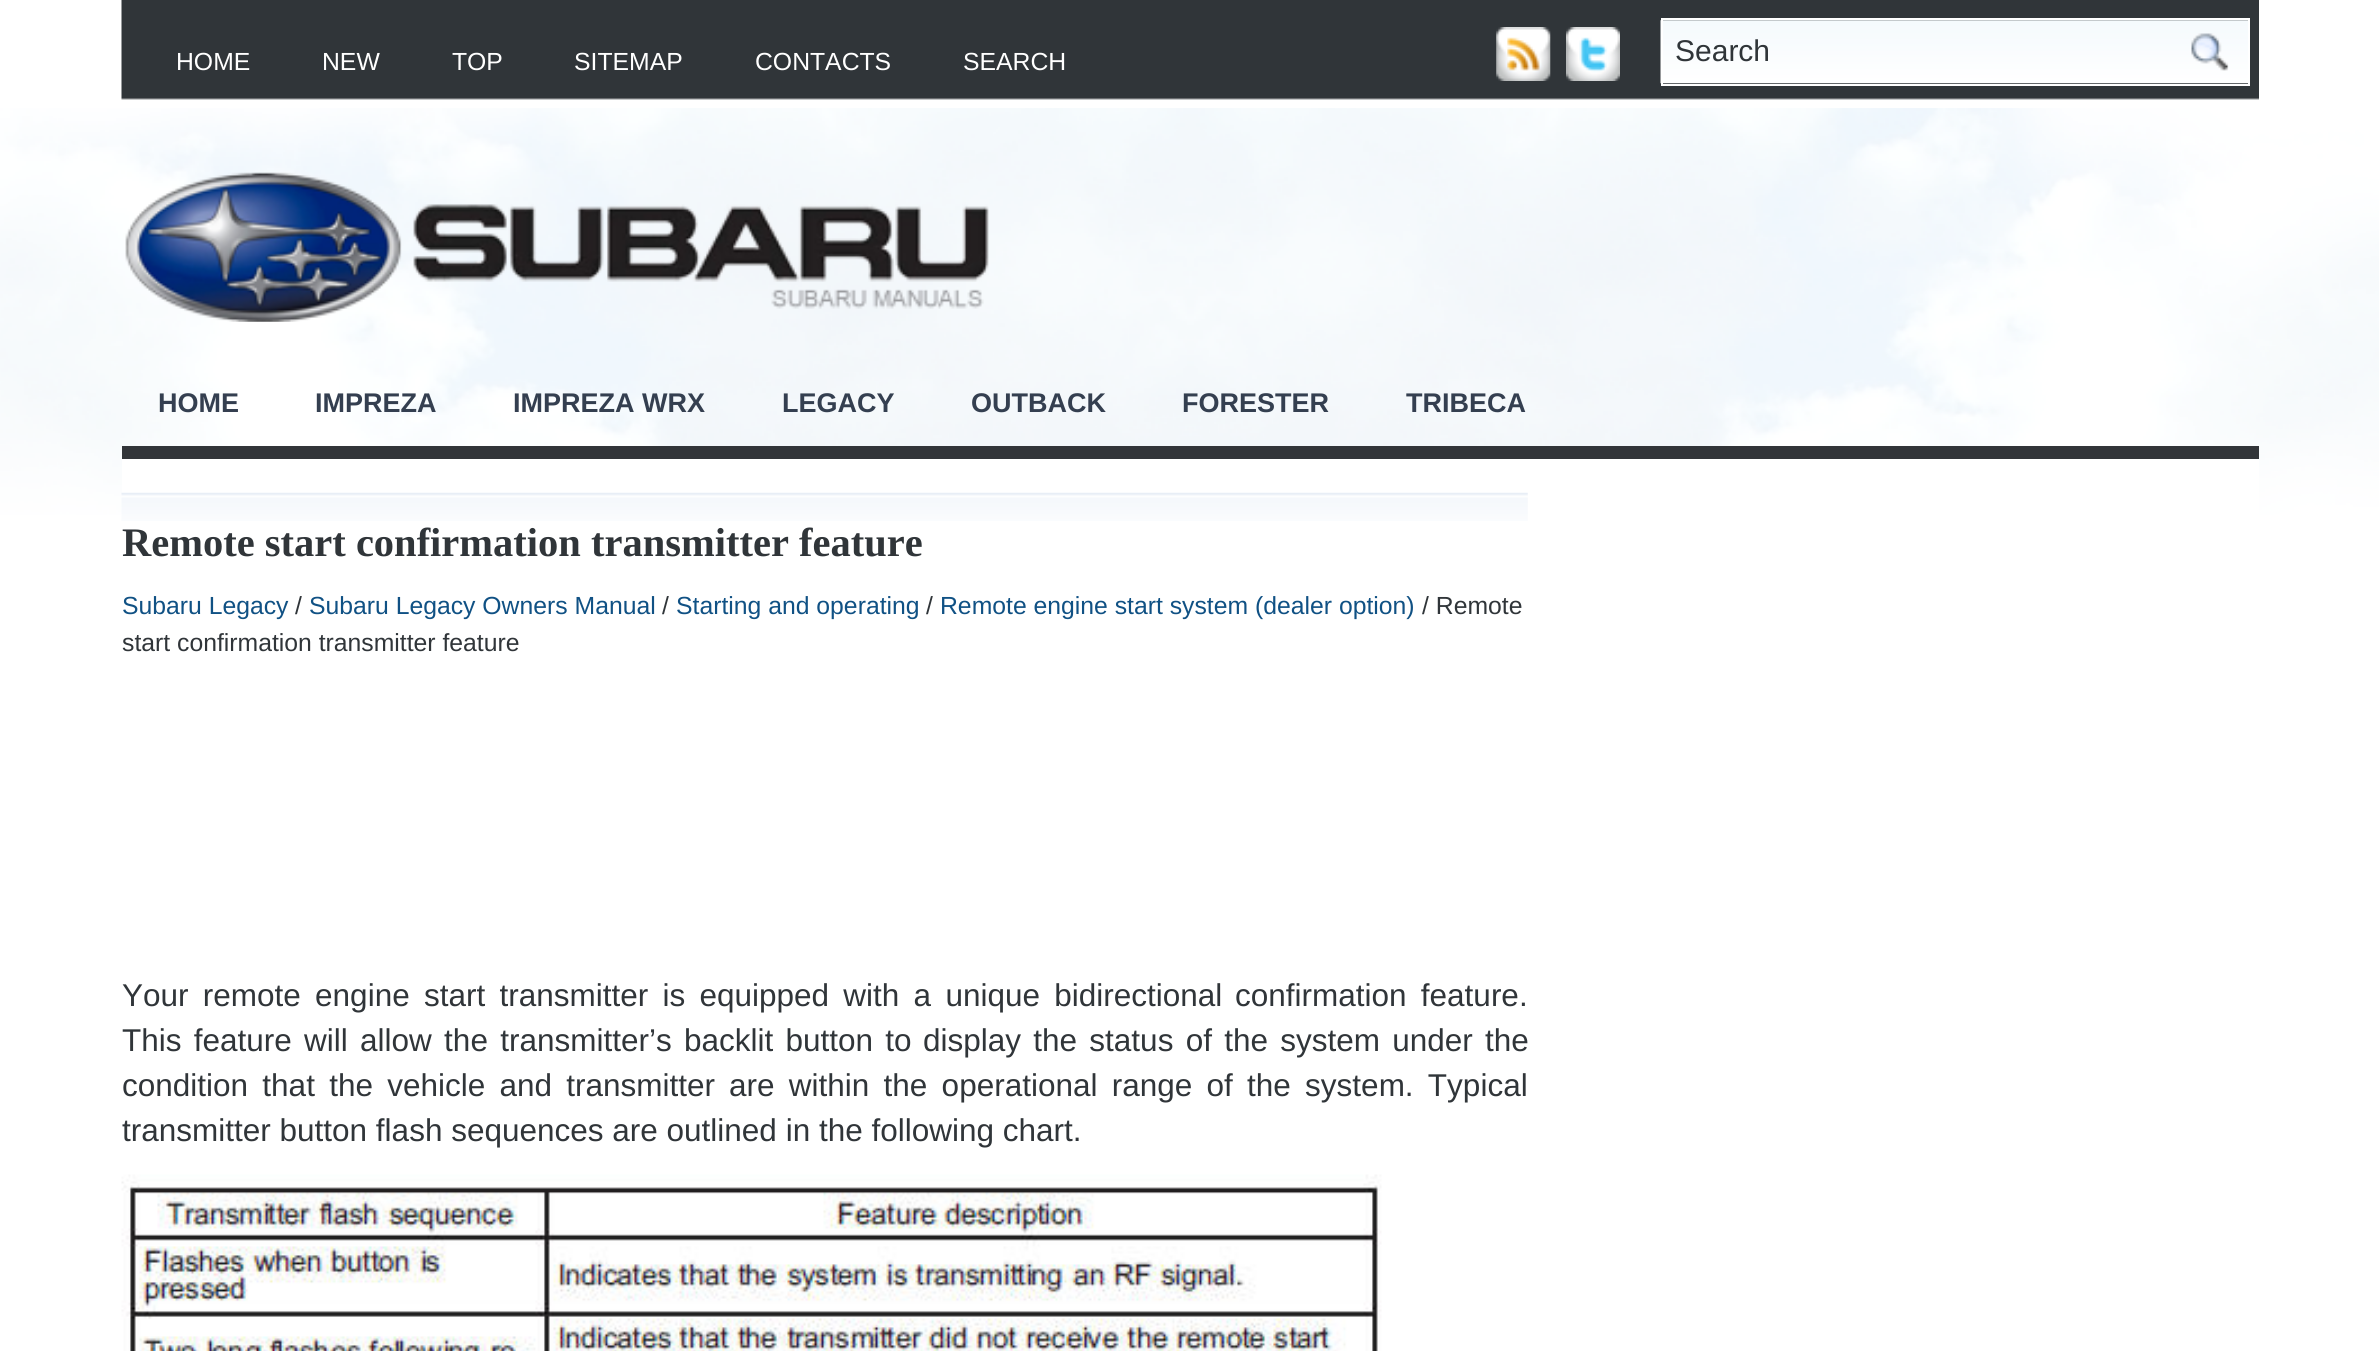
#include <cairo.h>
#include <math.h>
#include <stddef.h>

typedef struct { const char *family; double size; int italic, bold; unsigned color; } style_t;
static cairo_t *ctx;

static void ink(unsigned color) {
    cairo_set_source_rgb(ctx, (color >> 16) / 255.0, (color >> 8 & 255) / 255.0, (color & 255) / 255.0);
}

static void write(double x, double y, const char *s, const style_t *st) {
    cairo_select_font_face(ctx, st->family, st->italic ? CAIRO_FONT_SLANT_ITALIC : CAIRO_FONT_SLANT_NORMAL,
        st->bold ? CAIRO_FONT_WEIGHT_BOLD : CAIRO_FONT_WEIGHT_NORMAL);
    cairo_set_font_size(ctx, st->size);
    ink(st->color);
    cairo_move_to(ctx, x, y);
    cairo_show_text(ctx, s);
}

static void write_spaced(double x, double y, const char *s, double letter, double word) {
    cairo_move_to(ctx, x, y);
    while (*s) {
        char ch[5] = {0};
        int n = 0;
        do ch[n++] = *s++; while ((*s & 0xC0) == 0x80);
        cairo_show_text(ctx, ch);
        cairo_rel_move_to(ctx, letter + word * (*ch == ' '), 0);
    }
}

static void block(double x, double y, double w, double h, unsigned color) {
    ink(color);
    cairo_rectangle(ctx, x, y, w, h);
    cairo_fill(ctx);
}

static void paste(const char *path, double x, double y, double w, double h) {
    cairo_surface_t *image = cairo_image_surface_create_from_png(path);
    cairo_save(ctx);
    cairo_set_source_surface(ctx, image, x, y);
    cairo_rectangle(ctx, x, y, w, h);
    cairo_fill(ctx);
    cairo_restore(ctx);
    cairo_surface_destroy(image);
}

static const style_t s1 = {"Liberation Sans", 24.75, 0, 0, 0xffffff};
static const style_t s2 = {"Liberation Sans", 30, 0, 0, 0x303539};
static const style_t s3 = {"Liberation Sans", 27, 0, 1, 0x343f50};
static const style_t s4 = {"Liberation Serif", 40.5, 0, 1, 0x303539};
static const style_t s5 = {"Liberation Sans", 24.75, 0, 0, 0x105184};
static const style_t s6 = {"Liberation Sans", 24.75, 0, 0, 0x303539};
static const style_t s7 = {"Liberation Sans", 31.5, 0, 0, 0x303539};

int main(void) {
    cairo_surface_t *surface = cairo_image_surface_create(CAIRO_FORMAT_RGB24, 2379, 1351);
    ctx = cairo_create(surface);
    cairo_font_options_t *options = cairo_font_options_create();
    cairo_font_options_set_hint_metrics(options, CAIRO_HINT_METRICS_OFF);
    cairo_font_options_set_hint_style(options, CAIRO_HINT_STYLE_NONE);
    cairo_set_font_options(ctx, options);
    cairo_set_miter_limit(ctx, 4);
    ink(0xffffff);
    cairo_paint(ctx);
    paste("pic1.png", 0, 108, 2379, 407);
    paste("pic2.png", 121, 0, 2138, 100);
    write(176, 70, "HOME", &s1);
    write(322, 70, "NEW", &s1);
    write(452, 70, "TOP", &s1);
    write(574, 70, "SITEMAP", &s1);
    write(755, 70, "CONTACTS", &s1);
    write(963, 70, "SEARCH", &s1);
    paste("pic3.png", 1496, 27, 55, 54);
    paste("pic4.png", 1566, 27, 54, 54);
    paste("pic5.png", 1660, 20, 588, 64);
    cairo_rectangle(ctx, 1662, 19, 587, 66);
    cairo_stroke(ctx);
    write(1675, 61, "Search", &s2);
    paste("pic6.png", 2191, 33, 38, 38);
    paste("pic7.png", 125, 172, 864, 150);
    block(122, 446, 2137, 13, 0x323539);
    write(158, 412, "HOME", &s3);
    write(315, 412, "IMPREZA", &s3);
    write(513, 412, "IMPREZA WRX", &s3);
    write(782, 412, "LEGACY", &s3);
    write(971, 412, "OUTBACK", &s3);
    write(1182, 412, "FORESTER", &s3);
    write(1406, 412, "TRIBECA", &s3);
    block(122, 459, 2137, 56, 0xffffff);
    paste("pic8.png", 121, 492, 1407, 29);
    write(122, 556, "Remote start confirmation transmitter feature", &s4);
    write(122, 614, "Subaru Legacy", &s5);
    write(295, 614, "/", &s6);
    write(309, 614, "Subaru Legacy Owners Manual", &s5);
    write(662, 614, "/", &s6);
    write(676, 614, "Starting and operating", &s5);
    write(926, 614, "/", &s6);
    write(940, 614, "Remote engine start system (dealer option)", &s5);
    write(1422, 614, "/ Remote", &s6);
    write(122, 651, "start confirmation transmitter feature", &s6);
    cairo_set_font_size(ctx, 31.5);
    write_spaced(122, 1006, "Your remote engine start transmitter is equipped with a unique bidirectional", 0, 5.5);
    write_spaced(1235, 1006, "confirmation feature.", 0, 5.5);
    write_spaced(122, 1051, "This feature will allow the transmitter’s backlit button to", 0, 3.5);
    write_spaced(923, 1051, "display the status of the system under the", 0, 3.5);
    write_spaced(122, 1096, "condition that the vehicle and transmitter", 0, 5.5);
    write_spaced(729, 1096, "are within the operational range of the system. Typical", 0, 5.5);
    write(122, 1141, "transmitter button flash sequences are outlined in the following chart.", &s7);
    paste("pic9.png", 121, 1174, 1261, 177);
    cairo_surface_write_to_png(surface, "screenshot.png");
    cairo_font_options_destroy(options);
    cairo_destroy(ctx);
    cairo_surface_destroy(surface);
    return 0;
}
